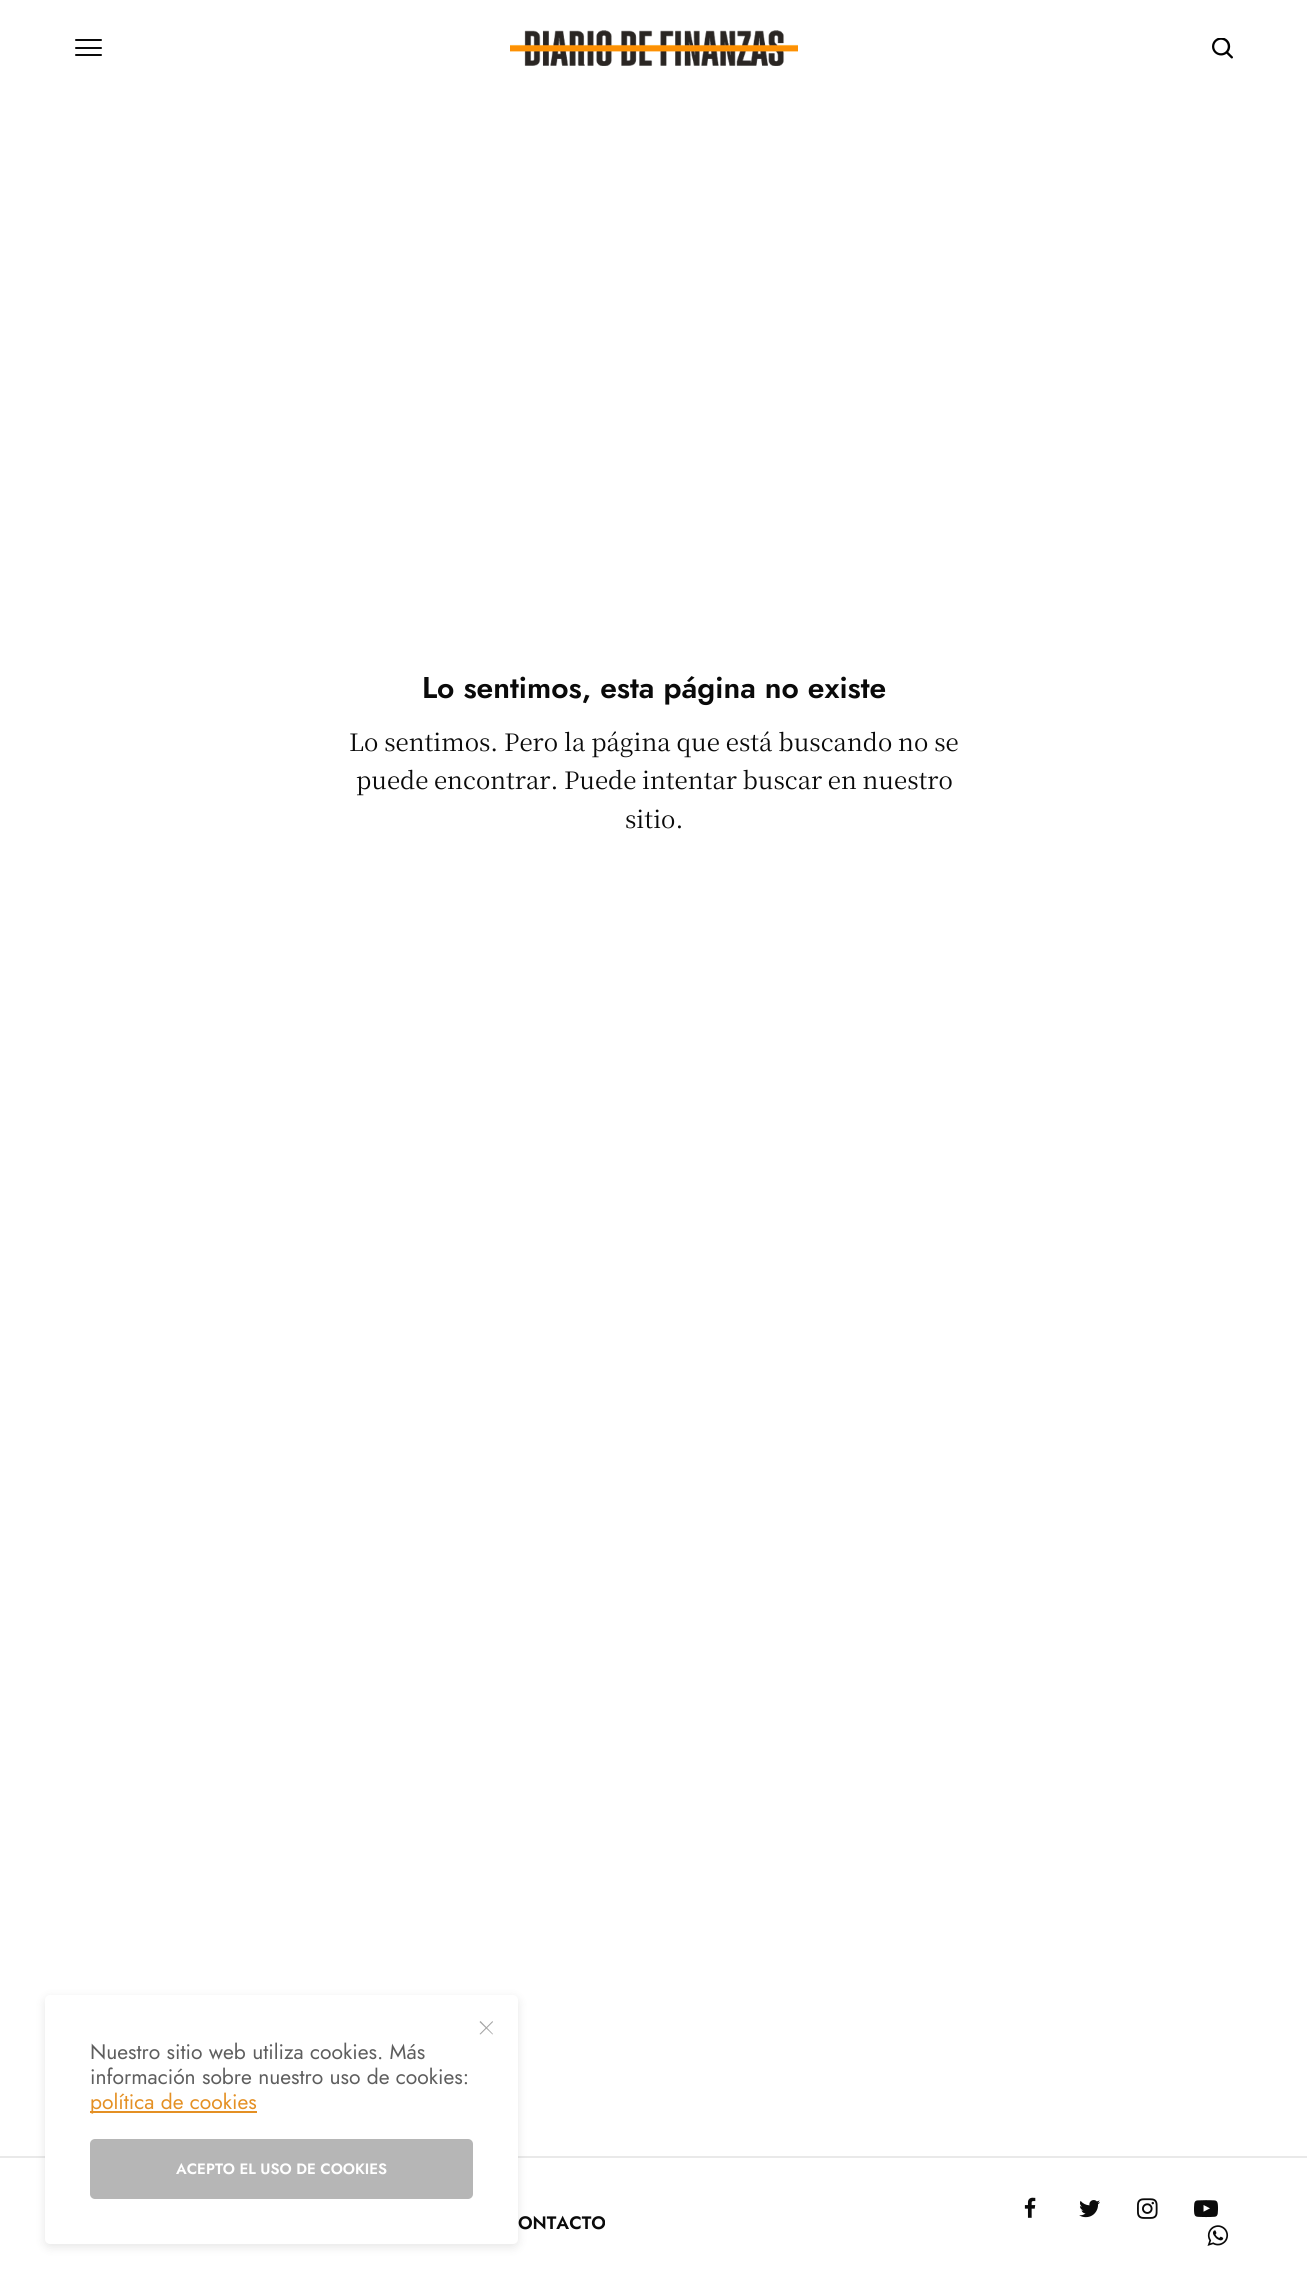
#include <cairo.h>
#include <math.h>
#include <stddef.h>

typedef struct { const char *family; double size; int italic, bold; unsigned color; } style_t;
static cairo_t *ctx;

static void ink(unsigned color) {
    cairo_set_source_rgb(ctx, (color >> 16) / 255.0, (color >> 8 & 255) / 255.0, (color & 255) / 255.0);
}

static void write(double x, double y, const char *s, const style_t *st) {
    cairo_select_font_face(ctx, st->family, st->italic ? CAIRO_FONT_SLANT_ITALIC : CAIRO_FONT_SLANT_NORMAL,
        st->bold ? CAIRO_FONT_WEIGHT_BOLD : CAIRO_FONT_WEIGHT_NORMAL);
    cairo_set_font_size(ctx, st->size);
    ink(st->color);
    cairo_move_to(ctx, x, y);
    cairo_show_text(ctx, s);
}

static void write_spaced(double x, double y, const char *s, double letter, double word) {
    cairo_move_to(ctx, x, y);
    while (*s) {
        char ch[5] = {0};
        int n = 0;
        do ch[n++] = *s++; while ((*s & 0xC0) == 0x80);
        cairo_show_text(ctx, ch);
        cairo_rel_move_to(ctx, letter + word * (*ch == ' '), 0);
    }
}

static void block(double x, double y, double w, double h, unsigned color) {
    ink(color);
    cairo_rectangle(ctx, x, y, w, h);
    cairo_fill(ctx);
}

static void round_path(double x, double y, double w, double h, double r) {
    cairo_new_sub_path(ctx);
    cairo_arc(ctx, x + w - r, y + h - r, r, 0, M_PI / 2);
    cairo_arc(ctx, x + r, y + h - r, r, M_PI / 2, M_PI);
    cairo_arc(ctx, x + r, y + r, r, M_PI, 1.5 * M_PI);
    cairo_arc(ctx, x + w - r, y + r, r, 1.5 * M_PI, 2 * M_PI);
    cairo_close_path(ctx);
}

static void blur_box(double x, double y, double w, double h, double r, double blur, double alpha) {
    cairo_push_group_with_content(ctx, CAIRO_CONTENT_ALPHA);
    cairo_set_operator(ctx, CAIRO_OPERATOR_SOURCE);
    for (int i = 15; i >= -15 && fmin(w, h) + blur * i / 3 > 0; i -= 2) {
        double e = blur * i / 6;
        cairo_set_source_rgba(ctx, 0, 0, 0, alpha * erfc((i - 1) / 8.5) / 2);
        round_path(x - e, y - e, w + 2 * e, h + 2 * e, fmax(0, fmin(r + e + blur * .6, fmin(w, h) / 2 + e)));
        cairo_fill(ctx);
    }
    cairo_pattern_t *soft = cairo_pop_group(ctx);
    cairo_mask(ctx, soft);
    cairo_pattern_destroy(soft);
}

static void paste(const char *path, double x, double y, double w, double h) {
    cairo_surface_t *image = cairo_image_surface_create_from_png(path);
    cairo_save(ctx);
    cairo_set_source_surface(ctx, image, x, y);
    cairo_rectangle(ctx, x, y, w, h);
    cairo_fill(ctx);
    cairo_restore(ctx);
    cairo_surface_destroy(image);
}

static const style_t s1 = {"Jost SemiBold", 30, 0, 0, 0x0a0a0a};
static const style_t s2 = {"Noto Serif KR", 24, 0, 0, 0x0a0a0a};
static const style_t s3 = {"Jost", 21, 0, 0, 0x5e5e5e};
static const style_t s4 = {"Jost", 21, 0, 0, 0xe49024};
static const style_t s5 = {"Jost SemiBold", 15, 0, 0, 0xffffff};
static const style_t s6 = {"Jost SemiBold", 18, 0, 0, 0x0a0a0a};

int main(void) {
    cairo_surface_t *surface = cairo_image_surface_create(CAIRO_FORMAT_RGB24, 1307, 2289);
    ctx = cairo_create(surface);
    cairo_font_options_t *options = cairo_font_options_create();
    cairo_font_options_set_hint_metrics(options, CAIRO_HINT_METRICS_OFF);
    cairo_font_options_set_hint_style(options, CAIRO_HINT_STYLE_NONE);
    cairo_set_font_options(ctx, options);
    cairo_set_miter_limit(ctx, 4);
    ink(0xffffff);
    cairo_paint(ctx);
    ink(0x0a0a0a);
    round_path(75, 39, 27, 2, 1);
    cairo_fill(ctx);
    round_path(75, 47, 27, 2, 1);
    cairo_fill(ctx);
    round_path(75, 54, 27, 2, 1);
    cairo_fill(ctx);
    paste("pic1.png", 510, 30, 288, 36);
    paste("pic2.png", 1212, 38, 21, 21);
    write(422, 698, "Lo sentimos, esta página no existe", &s1);
    cairo_select_font_face(ctx, "Noto Serif KR", CAIRO_FONT_SLANT_NORMAL, CAIRO_FONT_WEIGHT_NORMAL);
    cairo_set_font_size(ctx, 24);
    write_spaced(349, 751, "Lo sentimos. Pero la página que está buscando no se", 0, -0.25);
    write_spaced(356, 789, "puede encontrar. Puede intentar buscar en nuestro", 0, -0.5);
    write(625, 828, "sitio.", &s2);
    block(0, 2156, 1307, 2, 0xe9e9e9);
    ink(0x000000);
    blur_box(45, 1998, 473, 249, 5, 5, 0.1);
    ink(0xffffff);
    round_path(45, 1995, 473, 249, 5);
    cairo_fill(ctx);
    ink(0xa3a3a3);
    cairo_new_path(ctx);
    cairo_move_to(ctx, 480.5, 2021);
    cairo_line_to(ctx, 493, 2034);
    cairo_line_to(ctx, 492.5, 2034.5);
    cairo_line_to(ctx, 479.5, 2022);
    cairo_close_path(ctx);
    cairo_fill(ctx);
    cairo_new_path(ctx);
    cairo_move_to(ctx, 479.5, 2034);
    cairo_line_to(ctx, 492.5, 2021);
    cairo_line_to(ctx, 493, 2022);
    cairo_line_to(ctx, 480.5, 2034.5);
    cairo_close_path(ctx);
    cairo_fill(ctx);
    write(90, 2059, "Nuestro sitio web utiliza cookies. Más", &s3);
    write(90, 2084, "información sobre nuestro uso de cookies:", &s3);
    block(90, 2111, 167, 2, 0xe49024);
    write(90, 2109, "política de cookies", &s4);
    ink(0xb6b6b6);
    round_path(90, 2139, 383, 60, 5);
    cairo_fill(ctx);
    write(176, 2174, "ACEPTO EL USO DE COOKIES", &s5);
    write(518, 2229, "ONTACTO", &s6);
    paste("pic3.png", 1024, 2197, 12, 21);
    paste("pic4.png", 1079, 2200, 21, 18);
    paste("pic5.png", 1137, 2198, 21, 21);
    paste("pic6.png", 1194, 2200, 24, 18);
    paste("pic7.png", 1207, 2225, 22, 21);
    cairo_surface_write_to_png(surface, "screenshot.png");
    cairo_font_options_destroy(options);
    cairo_destroy(ctx);
    cairo_surface_destroy(surface);
    return 0;
}
